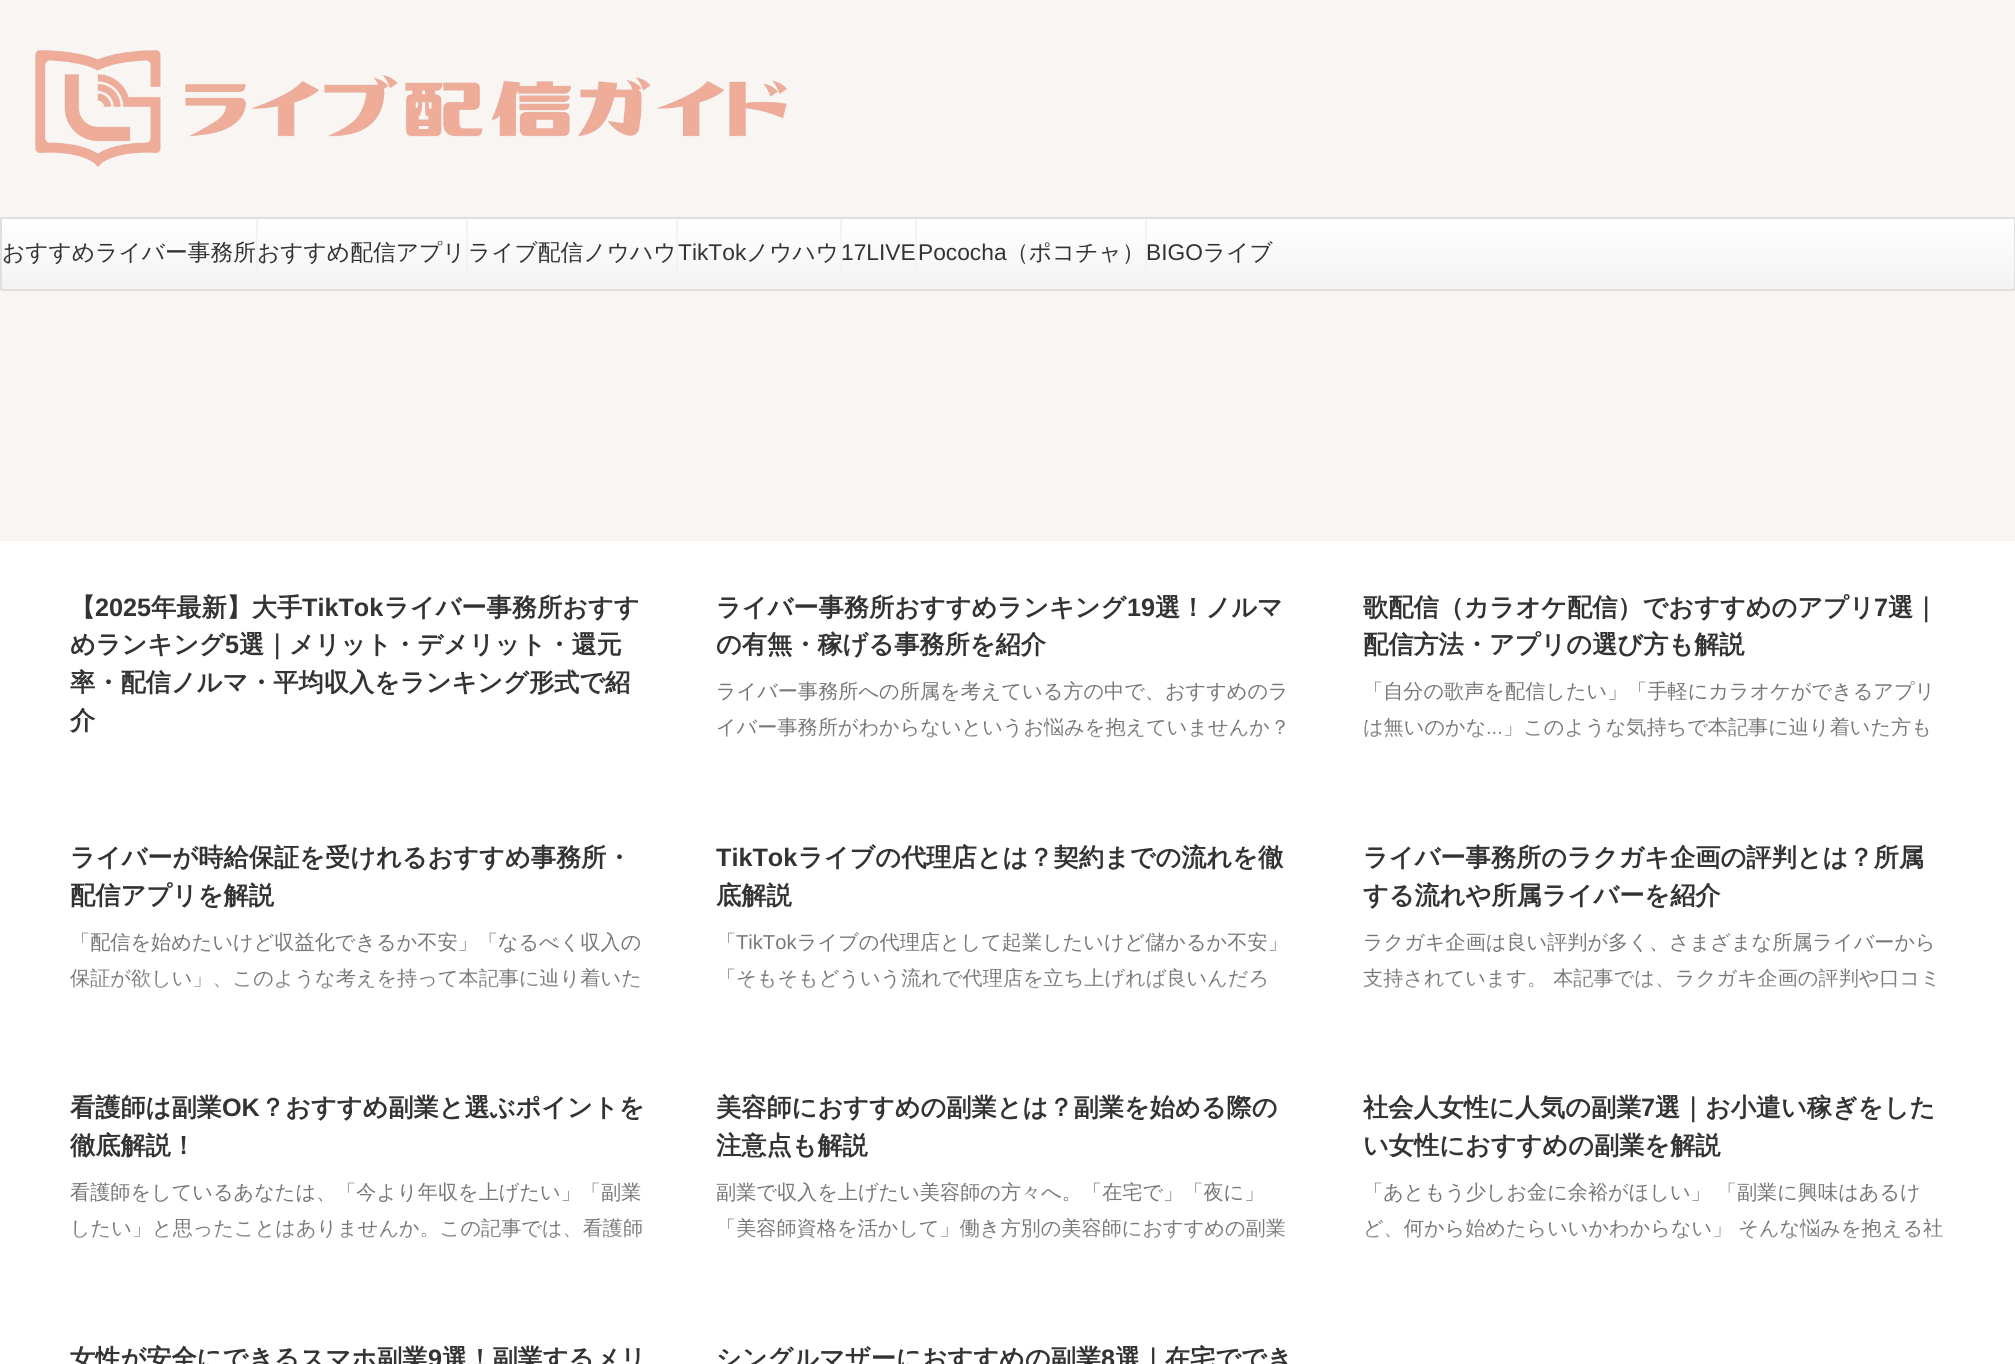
#include <cairo.h>
#include <math.h>
#include <stddef.h>

typedef struct { const char *family; double size; int italic, bold; unsigned color; } style_t;
static cairo_t *ctx;

static void ink(unsigned color) {
    cairo_set_source_rgb(ctx, (color >> 16) / 255.0, (color >> 8 & 255) / 255.0, (color & 255) / 255.0);
}

static void write(double x, double y, const char *s, const style_t *st) {
    cairo_select_font_face(ctx, st->family, st->italic ? CAIRO_FONT_SLANT_ITALIC : CAIRO_FONT_SLANT_NORMAL,
        st->bold ? CAIRO_FONT_WEIGHT_BOLD : CAIRO_FONT_WEIGHT_NORMAL);
    cairo_set_font_size(ctx, st->size);
    ink(st->color);
    cairo_move_to(ctx, x, y);
    cairo_show_text(ctx, s);
}

static void block(double x, double y, double w, double h, unsigned color) {
    ink(color);
    cairo_rectangle(ctx, x, y, w, h);
    cairo_fill(ctx);
}

static void round_path(double x, double y, double w, double h, double r) {
    cairo_new_sub_path(ctx);
    cairo_arc(ctx, x + w - r, y + h - r, r, 0, M_PI / 2);
    cairo_arc(ctx, x + r, y + h - r, r, M_PI / 2, M_PI);
    cairo_arc(ctx, x + r, y + r, r, M_PI, 1.5 * M_PI);
    cairo_arc(ctx, x + w - r, y + r, r, 1.5 * M_PI, 2 * M_PI);
    cairo_close_path(ctx);
}

static void paste(const char *path, double x, double y, double w, double h) {
    cairo_surface_t *image = cairo_image_surface_create_from_png(path);
    cairo_save(ctx);
    cairo_set_source_surface(ctx, image, x, y);
    cairo_rectangle(ctx, x, y, w, h);
    cairo_fill(ctx);
    cairo_restore(ctx);
    cairo_surface_destroy(image);
}

static const style_t s1 = {"WenQuanYi Zen Hei Medium", 22.75, 0, 0, 0x333333};
static const style_t s2 = {"Liberation Sans", 22.75, 0, 0, 0x333333};
static const style_t s3 = {"WenQuanYi Zen Hei", 25.2, 0, 1, 0x333333};
static const style_t s4 = {"Liberation Sans", 25.2, 0, 1, 0x333333};
static const style_t s5 = {"WenQuanYi Zen Hei Medium", 20.15, 0, 0, 0x777777};
static const style_t s6 = {"Liberation Sans", 20.15, 0, 0, 0x777777};

int main(void) {
    cairo_surface_t *surface = cairo_image_surface_create(CAIRO_FORMAT_RGB24, 2015, 1364);
    ctx = cairo_create(surface);
    cairo_font_options_t *options = cairo_font_options_create();
    cairo_font_options_set_hint_metrics(options, CAIRO_HINT_METRICS_OFF);
    cairo_font_options_set_hint_style(options, CAIRO_HINT_STYLE_NONE);
    cairo_set_font_options(ctx, options);
    cairo_set_miter_limit(ctx, 4);
    cairo_pattern_t *gradient;
    ink(0xf8f5f2);
    cairo_paint(ctx);
    paste("pic1.png", 35, 50, 752, 117);
    gradient = cairo_pattern_create_linear(1008, 219, 1008, 289);
    cairo_pattern_add_color_stop_rgba(gradient, 0, 1, 1, 1, 1);
    cairo_pattern_add_color_stop_rgba(gradient, 1, 0.953, 0.953, 0.953, 1);
    cairo_set_source(ctx, gradient);
    cairo_pattern_destroy(gradient);
    cairo_rectangle(ctx, 2, 219, 2012, 70);
    cairo_fill(ctx);
    round_path(1, 218, 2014, 72, 1);
    ink(0xe0dede);
    cairo_stroke(ctx);
    block(256, 219, 2, 55, 0xf3f3f3);
    write(2, 260, "おすすめライバー事務所", &s1);
    block(466, 219, 2, 55, 0xf3f3f3);
    write(257, 260, "おすすめ配信アプリ", &s1);
    block(676, 219, 2, 55, 0xf3f3f3);
    write(468, 260, "ライブ配信ノウハウ", &s1);
    block(840, 219, 2, 55, 0xf3f3f3);
    write(678, 260, "TikTok", &s2);
    write(746, 260, "ノウハウ", &s1);
    block(915, 219, 2, 55, 0xf3f3f3);
    write(841, 260, "17LIVE", &s2);
    block(1145, 219, 2, 55, 0xf3f3f3);
    write(918, 260, "Pococha", &s2);
    write(1006, 260, "（ポコチャ）", &s1);
    write(1146, 260, "BIGO", &s2);
    write(1203, 260, "ライブ", &s1);
    block(0, 541, 2015, 823, 0xffffff);
    write(70, 616, "【", &s3);
    write(95, 616, "2025", &s4);
    write(151, 616, "年最新】大手", &s3);
    write(302, 616, "TikTok", &s4);
    write(384, 616, "ライバー事務所おすす", &s3);
    write(70, 653, "めランキング", &s3);
    write(225, 653, "5", &s4);
    write(239, 653, "選｜メリット・デメリット・還元", &s3);
    write(70, 691, "率・配信ノルマ・平均収入をランキング形式で紹", &s3);
    write(70, 729, "介", &s3);
    gradient = cairo_pattern_create_linear(361, 730, 361, 763);
    cairo_pattern_add_color_stop_rgba(gradient, 0, 1, 1, 1, 0);
    cairo_pattern_add_color_stop_rgba(gradient, 1, 1, 1, 1, 1);
    cairo_set_source(ctx, gradient);
    cairo_pattern_destroy(gradient);
    cairo_rectangle(ctx, 71, 731, 16, 2);
    cairo_fill(ctx);
    write(716, 616, "ライバー事務所おすすめランキング", &s3);
    write(1127, 616, "19", &s4);
    write(1155, 616, "選！ノルマ", &s3);
    write(716, 653, "の有無・稼げる事務所を紹介", &s3);
    write(716, 698, "ライバー事務所への所属を考えている方の中で、おすすめのラ", &s5);
    write(716, 734, "イバー事務所がわからないというお悩みを抱えていませんか？", &s5);
    gradient = cairo_pattern_create_linear(1008, 730, 1008, 763);
    cairo_pattern_add_color_stop_rgba(gradient, 0, 1, 1, 1, 0);
    cairo_pattern_add_color_stop_rgba(gradient, 1, 1, 1, 1, 1);
    cairo_set_source(ctx, gradient);
    cairo_pattern_destroy(gradient);
    cairo_rectangle(ctx, 726, 731, 556, 7);
    cairo_fill(ctx);
    write(1363, 616, "歌配信（カラオケ配信）でおすすめのアプリ", &s3);
    write(1874, 616, "7", &s4);
    write(1888, 616, "選｜", &s3);
    write(1363, 653, "配信方法・アプリの選び方も解説", &s3);
    write(1363, 698, "「自分の歌声を配信したい」「手軽にカラオケができるアプリ", &s5);
    write(1363, 734, "は無いのかな", &s5);
    write(1503, 734, "」このような気持ちで本記事に辿り着いた方も", &s5);
    write(1486, 734, "...", &s6);
    gradient = cairo_pattern_create_linear(1655, 730, 1655, 763);
    cairo_pattern_add_color_stop_rgba(gradient, 0, 1, 1, 1, 0);
    cairo_pattern_add_color_stop_rgba(gradient, 1, 1, 1, 1, 1);
    cairo_set_source(ctx, gradient);
    cairo_pattern_destroy(gradient);
    cairo_rectangle(ctx, 1364, 731, 564, 7);
    cairo_fill(ctx);
    write(70, 866, "ライバーが時給保証を受けれるおすすめ事務所・", &s3);
    write(70, 904, "配信アプリを解説", &s3);
    write(70, 949, "「配信を始めたいけど収益化できるか不安」「なるべく収入の", &s5);
    write(70, 985, "保証が欲しい」、このような考えを持って本記事に辿り着いた", &s5);
    gradient = cairo_pattern_create_linear(361, 980, 361, 1013);
    cairo_pattern_add_color_stop_rgba(gradient, 0, 1, 1, 1, 0);
    cairo_pattern_add_color_stop_rgba(gradient, 1, 1, 1, 1, 1);
    cairo_set_source(ctx, gradient);
    cairo_pattern_destroy(gradient);
    cairo_rectangle(ctx, 73, 981, 567, 8);
    cairo_fill(ctx);
    write(716, 866, "TikTok", &s4);
    write(798, 866, "ライブの代理店とは？契約までの流れを徹", &s3);
    write(716, 904, "底解説", &s3);
    write(716, 949, "「", &s5);
    write(736, 949, "TikTok", &s6);
    write(797, 949, "ライブの代理店として起業したいけど儲かるか不安」", &s5);
    write(716, 985, "「そもそもどういう流れで代理店を立ち上げれば良いんだろ", &s5);
    gradient = cairo_pattern_create_linear(1008, 980, 1008, 1013);
    cairo_pattern_add_color_stop_rgba(gradient, 0, 1, 1, 1, 0);
    cairo_pattern_add_color_stop_rgba(gradient, 1, 1, 1, 1, 1);
    cairo_set_source(ctx, gradient);
    cairo_pattern_destroy(gradient);
    cairo_rectangle(ctx, 744, 981, 523, 8);
    cairo_fill(ctx);
    write(1363, 866, "ライバー事務所のラクガキ企画の評判とは？所属", &s3);
    write(1363, 904, "する流れや所属ライバーを紹介", &s3);
    write(1363, 949, "ラクガキ企画は良い評判が多く、さまざまな所属ライバーから", &s5);
    write(1363, 985, "支持されています。 本記事では、ラクガキ企画の評判や口コミ", &s5);
    gradient = cairo_pattern_create_linear(1655, 980, 1655, 1013);
    cairo_pattern_add_color_stop_rgba(gradient, 0, 1, 1, 1, 0);
    cairo_pattern_add_color_stop_rgba(gradient, 1, 1, 1, 1, 1);
    cairo_set_source(ctx, gradient);
    cairo_pattern_destroy(gradient);
    cairo_rectangle(ctx, 1363, 981, 572, 8);
    cairo_fill(ctx);
    write(70, 1116, "看護師は副業", &s3);
    write(222, 1116, "OK", &s4);
    write(260, 1116, "？おすすめ副業と選ぶポイントを", &s3);
    write(70, 1154, "徹底解説！", &s3);
    write(70, 1199, "看護師をしているあなたは、「今より年収を上げたい」「副業", &s5);
    write(70, 1235, "したい」と思ったことはありませんか。この記事では、看護師", &s5);
    gradient = cairo_pattern_create_linear(361, 1230, 361, 1264);
    cairo_pattern_add_color_stop_rgba(gradient, 0, 1, 1, 1, 0);
    cairo_pattern_add_color_stop_rgba(gradient, 1, 1, 1, 1, 1);
    cairo_set_source(ctx, gradient);
    cairo_pattern_destroy(gradient);
    cairo_rectangle(ctx, 74, 1231, 568, 8);
    cairo_fill(ctx);
    write(716, 1116, "美容師におすすめの副業とは？副業を始める際の", &s3);
    write(716, 1154, "注意点も解説", &s3);
    write(716, 1199, "副業で収入を上げたい美容師の方々へ。「在宅で」「夜に」", &s5);
    write(716, 1235, "「美容師資格を活かして」働き方別の美容師におすすめの副業", &s5);
    gradient = cairo_pattern_create_linear(1008, 1230, 1008, 1264);
    cairo_pattern_add_color_stop_rgba(gradient, 0, 1, 1, 1, 0);
    cairo_pattern_add_color_stop_rgba(gradient, 1, 1, 1, 1, 1);
    cairo_set_source(ctx, gradient);
    cairo_pattern_destroy(gradient);
    cairo_rectangle(ctx, 737, 1231, 549, 8);
    cairo_fill(ctx);
    write(1363, 1116, "社会人女性に人気の副業", &s3);
    write(1641, 1116, "7", &s4);
    write(1655, 1116, "選｜お小遣い稼ぎをした", &s3);
    write(1363, 1154, "い女性におすすめの副業を解説", &s3);
    write(1363, 1199, "「あともう少しお金に余裕がほしい」 「副業に興味はあるけ", &s5);
    write(1363, 1235, "ど、何から始めたらいいかわからない」 そんな悩みを抱える社", &s5);
    gradient = cairo_pattern_create_linear(1655, 1230, 1655, 1264);
    cairo_pattern_add_color_stop_rgba(gradient, 0, 1, 1, 1, 0);
    cairo_pattern_add_color_stop_rgba(gradient, 1, 1, 1, 1, 1);
    cairo_set_source(ctx, gradient);
    cairo_pattern_destroy(gradient);
    cairo_rectangle(ctx, 1366, 1231, 576, 8);
    cairo_fill(ctx);
    write(70, 1367, "女性が安全にできるスマホ副業", &s3);
    write(428, 1367, "9", &s4);
    write(442, 1367, "選！副業するメリ", &s3);
    write(716, 1367, "シングルマザーにおすすめの副業", &s3);
    write(1101, 1367, "8", &s4);
    write(1115, 1367, "選｜在宅ででき", &s3);
    cairo_surface_write_to_png(surface, "screenshot.png");
    cairo_font_options_destroy(options);
    cairo_destroy(ctx);
    cairo_surface_destroy(surface);
    return 0;
}
